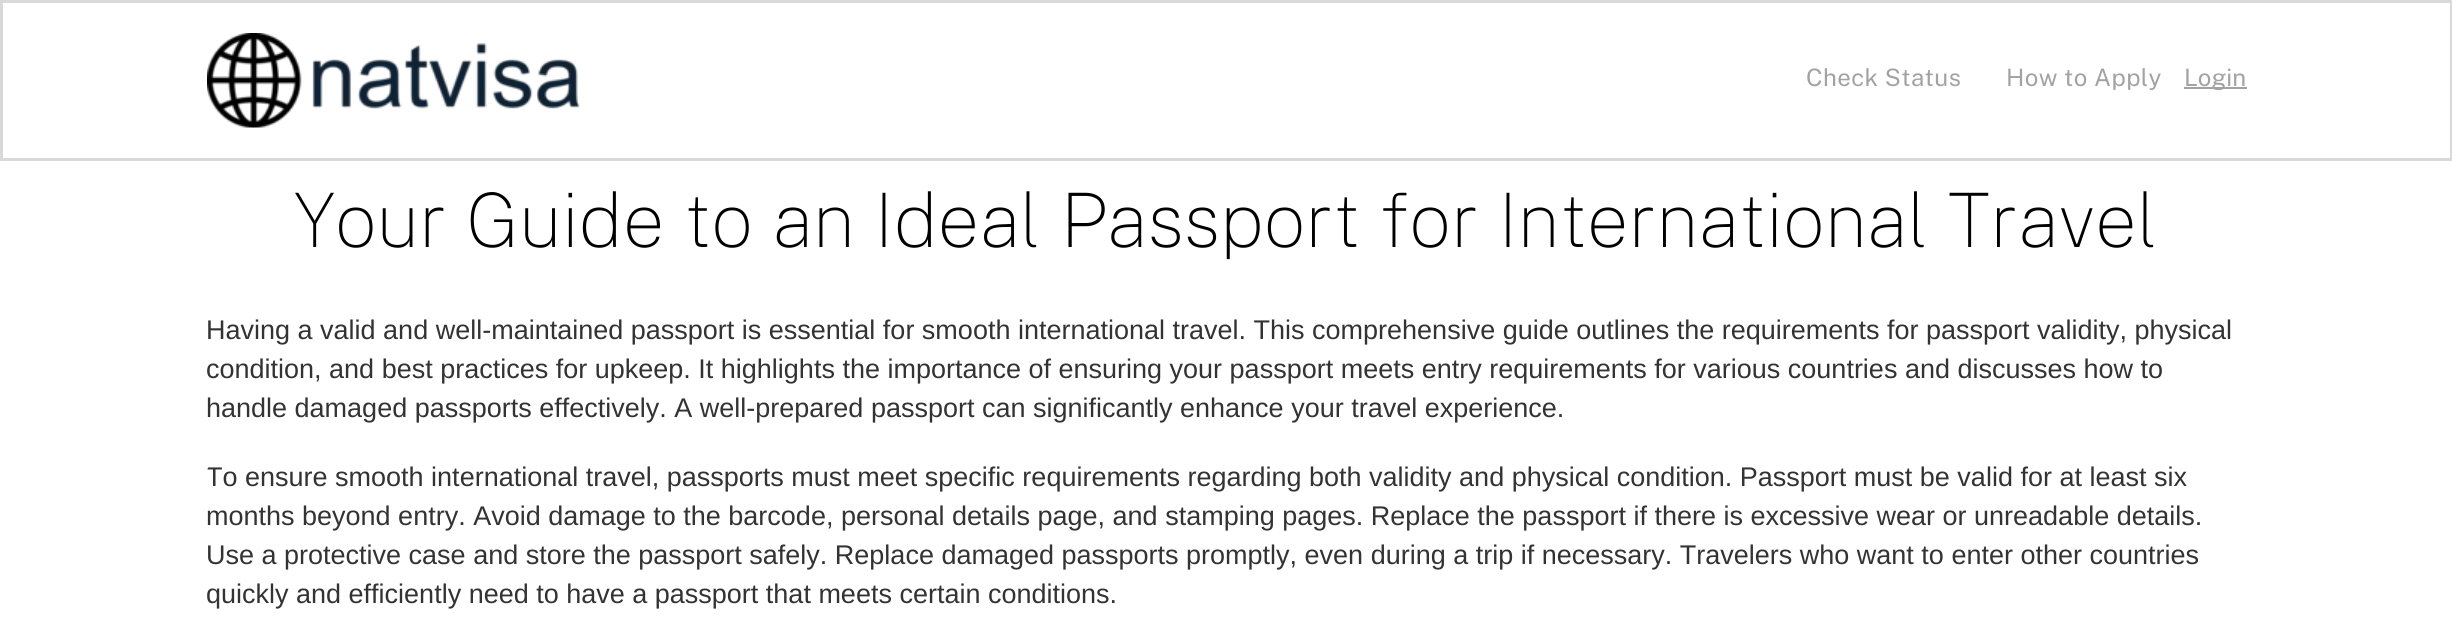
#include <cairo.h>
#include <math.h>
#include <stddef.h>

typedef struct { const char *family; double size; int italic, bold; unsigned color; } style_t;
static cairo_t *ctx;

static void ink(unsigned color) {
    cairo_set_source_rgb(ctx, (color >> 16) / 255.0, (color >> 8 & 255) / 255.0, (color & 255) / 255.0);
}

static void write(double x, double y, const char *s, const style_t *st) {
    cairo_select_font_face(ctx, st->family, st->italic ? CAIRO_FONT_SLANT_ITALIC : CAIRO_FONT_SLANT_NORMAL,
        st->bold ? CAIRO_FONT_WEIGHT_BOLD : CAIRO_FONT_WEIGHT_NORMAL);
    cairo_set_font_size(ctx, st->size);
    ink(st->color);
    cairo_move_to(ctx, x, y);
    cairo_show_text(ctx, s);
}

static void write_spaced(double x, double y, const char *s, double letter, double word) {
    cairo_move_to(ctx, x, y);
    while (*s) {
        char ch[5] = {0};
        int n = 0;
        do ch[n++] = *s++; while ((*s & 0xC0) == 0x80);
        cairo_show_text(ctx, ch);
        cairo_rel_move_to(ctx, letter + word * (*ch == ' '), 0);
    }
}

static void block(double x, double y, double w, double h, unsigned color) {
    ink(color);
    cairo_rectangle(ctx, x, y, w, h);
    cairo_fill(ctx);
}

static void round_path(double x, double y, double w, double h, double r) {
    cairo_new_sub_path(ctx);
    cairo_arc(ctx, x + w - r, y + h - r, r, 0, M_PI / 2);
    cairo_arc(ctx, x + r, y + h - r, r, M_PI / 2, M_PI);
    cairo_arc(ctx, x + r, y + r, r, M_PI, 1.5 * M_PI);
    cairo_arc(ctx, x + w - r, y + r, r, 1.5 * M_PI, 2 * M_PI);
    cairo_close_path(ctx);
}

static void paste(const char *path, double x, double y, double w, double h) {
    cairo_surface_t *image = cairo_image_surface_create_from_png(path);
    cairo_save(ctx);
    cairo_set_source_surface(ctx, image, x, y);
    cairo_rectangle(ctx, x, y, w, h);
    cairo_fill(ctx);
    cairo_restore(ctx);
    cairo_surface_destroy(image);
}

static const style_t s1 = {"Public Sans", 24, 0, 0, 0xa2a2a2};
static const style_t s2 = {"Public Sans Thin", 75, 0, 0, 0x000000};
static const style_t s3 = {"Liberation Sans", 27, 0, 0, 0x333333};

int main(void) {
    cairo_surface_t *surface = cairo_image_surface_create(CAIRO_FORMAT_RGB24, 2452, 622);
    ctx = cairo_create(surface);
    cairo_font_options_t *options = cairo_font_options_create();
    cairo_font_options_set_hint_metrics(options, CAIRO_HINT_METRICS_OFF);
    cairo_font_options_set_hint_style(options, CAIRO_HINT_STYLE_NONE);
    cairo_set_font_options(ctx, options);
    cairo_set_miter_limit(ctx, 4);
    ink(0xffffff);
    cairo_paint(ctx);
    cairo_rectangle(ctx, 1.5, 1.5, 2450, 158);
    ink(0xd9d9d9);
    cairo_set_line_width(ctx, 3);
    cairo_stroke(ctx);
    paste("pic1.png", 207, 33, 373, 95);
    cairo_select_font_face(ctx, "Public Sans", CAIRO_FONT_SLANT_NORMAL, CAIRO_FONT_WEIGHT_NORMAL);
    cairo_set_font_size(ctx, 24);
    ink(0xa2a2a2);
    write_spaced(1806, 86, "Check Status", 0.4, 0);
    write_spaced(2006, 86, "How to Apply", 0.4, 0);
    block(2184, 87, 63, 2, 0xa2a2a2);
    write(2184, 86, "Login", &s1);
    write(294, 247, "Your Guide to an Ideal Passport for International Travel", &s2);
    write(206, 339, "Having a valid and well-maintained passport is essential for smooth international travel. This comprehensive guide outlines the requirements for passport validity, physical", &s3);
    write(206, 378, "condition, and best practices for upkeep. It highlights the importance of ensuring your passport meets entry requirements for various countries and discusses how to", &s3);
    write(206, 417, "handle damaged passports effectively. A well-prepared passport can significantly enhance your travel experience.", &s3);
    cairo_save(ctx);
    round_path(207, 458, 2040, 156, 15);
    cairo_clip(ctx);
    write(206, 486, "To ensure smooth international travel, passports must meet specific requirements regarding both validity and physical condition. Passport must be valid for at least six", &s3);
    cairo_restore(ctx);
    write(206, 525, "months beyond entry. Avoid damage to the barcode, personal details page, and stamping pages. Replace the passport if there is excessive wear or unreadable details.", &s3);
    write(206, 564, "Use a protective case and store the passport safely. Replace damaged passports promptly, even during a trip if necessary. Travelers who want to enter other countries", &s3);
    write(206, 603, "quickly and efficiently need to have a passport that meets certain conditions.", &s3);
    cairo_surface_write_to_png(surface, "screenshot.png");
    cairo_font_options_destroy(options);
    cairo_destroy(ctx);
    cairo_surface_destroy(surface);
    return 0;
}
